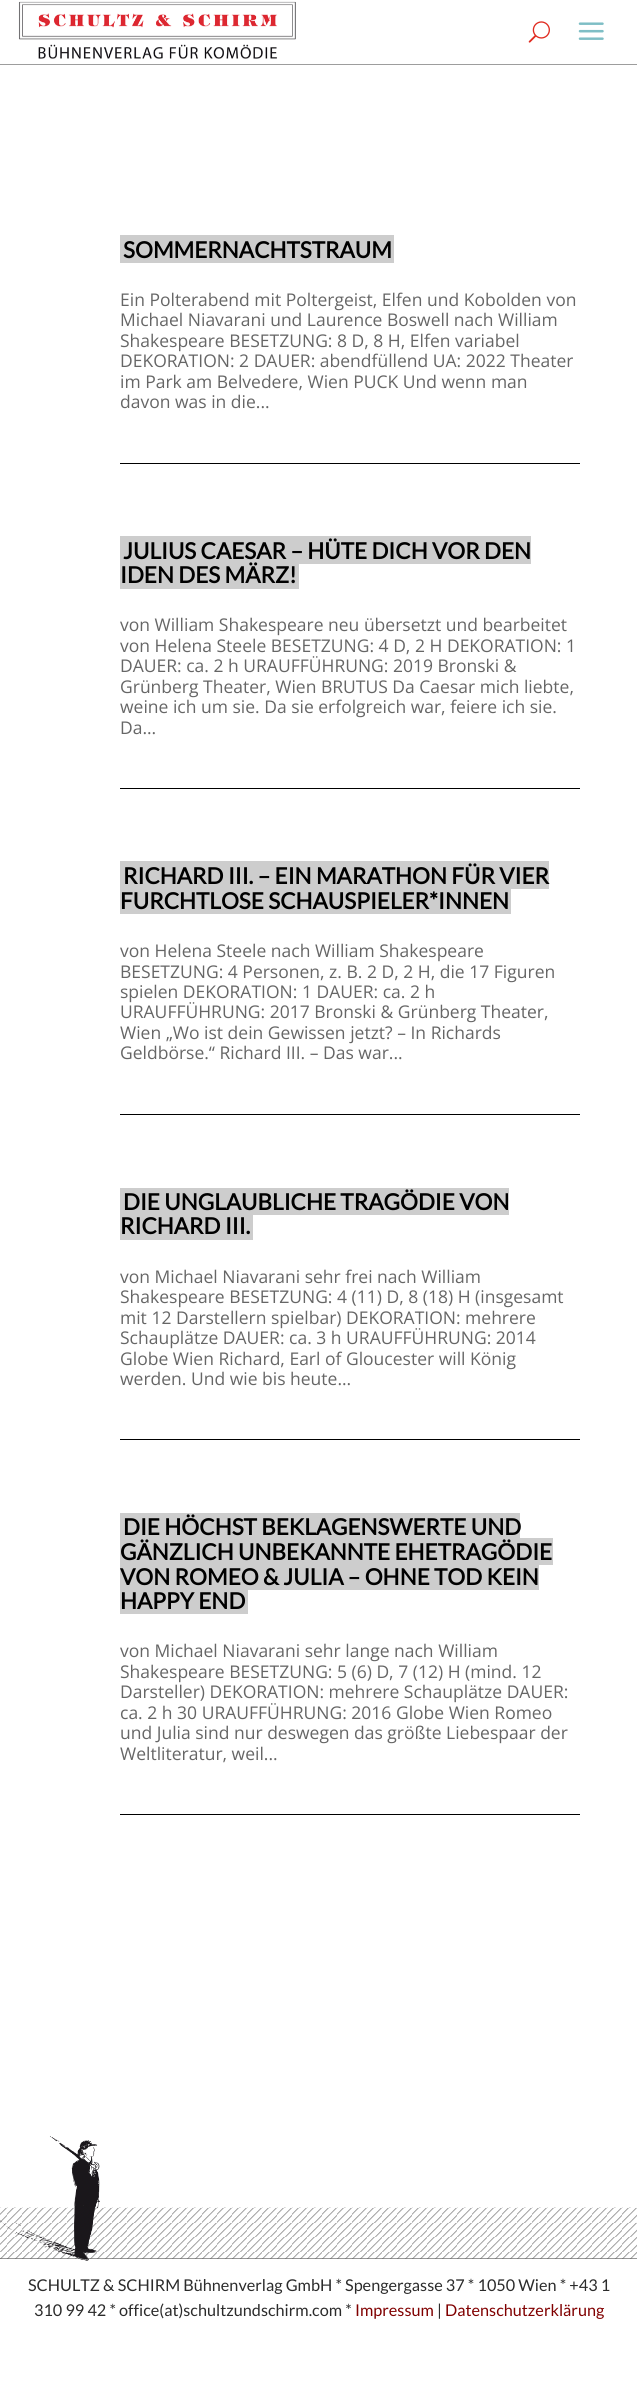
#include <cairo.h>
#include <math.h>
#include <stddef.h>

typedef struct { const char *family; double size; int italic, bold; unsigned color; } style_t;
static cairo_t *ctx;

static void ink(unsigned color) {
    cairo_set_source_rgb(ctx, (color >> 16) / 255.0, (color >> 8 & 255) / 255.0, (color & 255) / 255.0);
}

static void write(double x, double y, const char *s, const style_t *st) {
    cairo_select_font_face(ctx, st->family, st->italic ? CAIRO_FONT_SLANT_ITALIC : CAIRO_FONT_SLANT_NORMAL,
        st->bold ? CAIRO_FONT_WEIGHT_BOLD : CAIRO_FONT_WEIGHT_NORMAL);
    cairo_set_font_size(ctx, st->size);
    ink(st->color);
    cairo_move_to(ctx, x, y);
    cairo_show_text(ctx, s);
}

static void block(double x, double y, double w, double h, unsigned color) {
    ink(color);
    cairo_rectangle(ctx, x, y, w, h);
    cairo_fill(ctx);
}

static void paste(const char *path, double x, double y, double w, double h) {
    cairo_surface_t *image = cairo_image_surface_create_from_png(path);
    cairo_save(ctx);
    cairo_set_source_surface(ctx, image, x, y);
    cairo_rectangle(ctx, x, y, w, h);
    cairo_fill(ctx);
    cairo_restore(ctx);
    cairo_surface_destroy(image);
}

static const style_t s1 = {"Lato", 22.5, 0, 1, 0x000000};
static const style_t s2 = {"Open Sans", 17.5, 0, 0, 0x666666};
static const style_t s3 = {"Lato", 16.25, 0, 0, 0x2b2b2b};
static const style_t s4 = {"Lato", 16.25, 0, 0, 0x800000};

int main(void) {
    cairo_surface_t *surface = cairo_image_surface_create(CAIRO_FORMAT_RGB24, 637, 2388);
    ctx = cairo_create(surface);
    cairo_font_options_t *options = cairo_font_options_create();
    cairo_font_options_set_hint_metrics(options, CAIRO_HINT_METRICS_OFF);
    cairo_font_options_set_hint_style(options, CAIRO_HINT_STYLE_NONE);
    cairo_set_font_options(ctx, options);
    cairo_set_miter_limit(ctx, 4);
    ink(0xffffff);
    cairo_paint(ctx);
    block(0, 64, 637, 1, 0x9d9d9d);
    paste("pic1.png", 18, 1, 278, 58);
    paste("pic2.png", 528, 21, 22, 22);
    paste("pic3.png", 578, 22, 26, 18);
    block(120, 463, 460, 1, 0x000000);
    block(120, 235, 274, 28, 0xcdcdcd);
    write(123, 258, "SOMMERNACHTSTRAUM", &s1);
    write(120, 306, "Ein Polterabend mit Poltergeist, Elfen und Kobolden von", &s2);
    write(120, 326, "Michael Niavarani und Laurence Boswell nach William", &s2);
    write(120, 347, "Shakespeare BESETZUNG: 8 D, 8 H, Elfen variabel", &s2);
    write(120, 367, "DEKORATION: 2 DAUER: abendfüllend UA: 2022 Theater", &s2);
    write(120, 388, "im Park am Belvedere, Wien PUCK Und wenn man", &s2);
    write(120, 408, "davon was in die...", &s2);
    block(120, 788, 460, 1, 0x000000);
    block(120, 536, 411, 28, 0xcdcdcd);
    write(123, 559, "JULIUS CAESAR – HÜTE DICH VOR DEN", &s1);
    block(120, 564, 179, 25, 0xcdcdcd);
    write(120, 583, "IDEN DES MÄRZ!", &s1);
    write(120, 631, "von William Shakespeare neu übersetzt und bearbeitet", &s2);
    write(120, 652, "von Helena Steele BESETZUNG: 4 D, 2 H DEKORATION: 1", &s2);
    write(120, 672, "DAUER: ca. 2 h URAUFFÜHRUNG: 2019 Bronski &", &s2);
    write(120, 693, "Grünberg Theater, Wien BRUTUS Da Caesar mich liebte,", &s2);
    write(120, 713, "weine ich um sie. Da sie erfolgreich war, feiere ich sie.", &s2);
    write(120, 734, "Da...", &s2);
    block(120, 1114, 460, 1, 0x000000);
    block(120, 861, 429, 28, 0xcdcdcd);
    write(123, 884, "RICHARD III. – EIN MARATHON FÜR VIER", &s1);
    block(120, 889, 391, 25, 0xcdcdcd);
    write(120, 909, "FURCHTLOSE SCHAUSPIELER*INNEN", &s1);
    write(120, 957, "von Helena Steele nach William Shakespeare", &s2);
    write(120, 978, "BESETZUNG: 4 Personen, z. B. 2 D, 2 H, die 17 Figuren", &s2);
    write(120, 998, "spielen DEKORATION: 1 DAUER: ca. 2 h", &s2);
    write(120, 1018, "URAUFFÜHRUNG: 2017 Bronski & Grünberg Theater,", &s2);
    write(120, 1039, "Wien „Wo ist dein Gewissen jetzt? – In Richards", &s2);
    write(120, 1059, "Geldbörse.“ Richard III. – Das war...", &s2);
    block(120, 1439, 460, 1, 0x000000);
    block(120, 1188, 389, 27, 0xcdcdcd);
    write(123, 1210, "DIE UNGLAUBLICHE TRAGÖDIE VON", &s1);
    block(120, 1215, 133, 25, 0xcdcdcd);
    write(120, 1234, "RICHARD III.", &s1);
    write(120, 1283, "von Michael Niavarani sehr frei nach William", &s2);
    write(120, 1303, "Shakespeare BESETZUNG: 4 (11) D, 8 (18) H (insgesamt", &s2);
    write(120, 1324, "mit 12 Darstellern spielbar) DEKORATION: mehrere", &s2);
    write(120, 1344, "Schauplätze DAUER: ca. 3 h URAUFFÜHRUNG: 2014", &s2);
    write(120, 1365, "Globe Wien Richard, Earl of Gloucester will König", &s2);
    write(120, 1385, "werden. Und wie bis heute...", &s2);
    block(120, 1814, 460, 1, 0x000000);
    block(120, 1513, 400, 25, 0xcdcdcd);
    write(123, 1535, "DIE HÖCHST BEKLAGENSWERTE UND", &s1);
    block(120, 1538, 433, 27, 0xcdcdcd);
    write(120, 1560, "GÄNZLICH UNBEKANNTE EHETRAGÖDIE", &s1);
    block(120, 1565, 419, 25, 0xcdcdcd);
    write(120, 1585, "VON ROMEO & JULIA – OHNE TOD KEIN", &s1);
    block(120, 1590, 128, 24, 0xcdcdcd);
    write(120, 1609, "HAPPY END", &s1);
    write(120, 1657, "von Michael Niavarani sehr lange nach William", &s2);
    write(120, 1678, "Shakespeare BESETZUNG: 5 (6) D, 7 (12) H (mind. 12", &s2);
    write(120, 1698, "Darsteller) DEKORATION: mehrere Schauplätze DAUER:", &s2);
    write(120, 1719, "ca. 2 h 30 URAUFFÜHRUNG: 2016 Globe Wien Romeo", &s2);
    write(120, 1739, "und Julia sind nur deswegen das größte Liebespaar der", &s2);
    write(120, 1760, "Weltliteratur, weil...", &s2);
    paste("pic4.png", 0, 2207, 637, 52);
    cairo_set_source_rgba(ctx, 0.2, 0.2, 0.2, 0.5);
    cairo_rectangle(ctx, 0, 2258, 637, 1);
    cairo_fill(ctx);
    paste("pic5.png", 0, 2136, 100, 125);
    write(28, 2291, "SCHULTZ & SCHIRM Bühnenverlag GmbH * Spengergasse 37 * 1050 Wien * +43 1", &s3);
    write(34, 2316, "310 99 42 * office(at)schultzundschirm.com *", &s3);
    write(355, 2316, "Impressum", &s4);
    write(437, 2316, "|", &s3);
    write(445, 2316, "Datenschutzerklärung", &s4);
    cairo_surface_write_to_png(surface, "screenshot.png");
    cairo_font_options_destroy(options);
    cairo_destroy(ctx);
    cairo_surface_destroy(surface);
    return 0;
}
